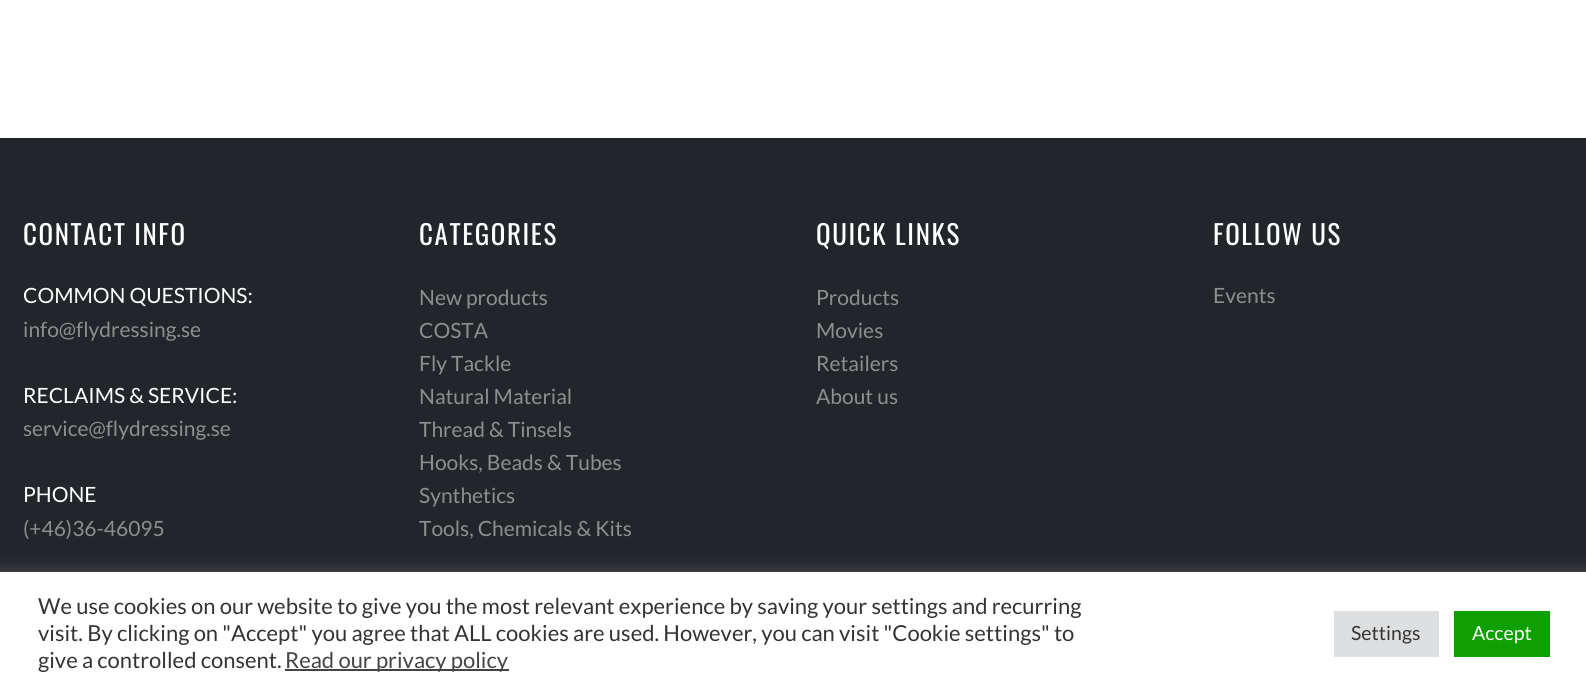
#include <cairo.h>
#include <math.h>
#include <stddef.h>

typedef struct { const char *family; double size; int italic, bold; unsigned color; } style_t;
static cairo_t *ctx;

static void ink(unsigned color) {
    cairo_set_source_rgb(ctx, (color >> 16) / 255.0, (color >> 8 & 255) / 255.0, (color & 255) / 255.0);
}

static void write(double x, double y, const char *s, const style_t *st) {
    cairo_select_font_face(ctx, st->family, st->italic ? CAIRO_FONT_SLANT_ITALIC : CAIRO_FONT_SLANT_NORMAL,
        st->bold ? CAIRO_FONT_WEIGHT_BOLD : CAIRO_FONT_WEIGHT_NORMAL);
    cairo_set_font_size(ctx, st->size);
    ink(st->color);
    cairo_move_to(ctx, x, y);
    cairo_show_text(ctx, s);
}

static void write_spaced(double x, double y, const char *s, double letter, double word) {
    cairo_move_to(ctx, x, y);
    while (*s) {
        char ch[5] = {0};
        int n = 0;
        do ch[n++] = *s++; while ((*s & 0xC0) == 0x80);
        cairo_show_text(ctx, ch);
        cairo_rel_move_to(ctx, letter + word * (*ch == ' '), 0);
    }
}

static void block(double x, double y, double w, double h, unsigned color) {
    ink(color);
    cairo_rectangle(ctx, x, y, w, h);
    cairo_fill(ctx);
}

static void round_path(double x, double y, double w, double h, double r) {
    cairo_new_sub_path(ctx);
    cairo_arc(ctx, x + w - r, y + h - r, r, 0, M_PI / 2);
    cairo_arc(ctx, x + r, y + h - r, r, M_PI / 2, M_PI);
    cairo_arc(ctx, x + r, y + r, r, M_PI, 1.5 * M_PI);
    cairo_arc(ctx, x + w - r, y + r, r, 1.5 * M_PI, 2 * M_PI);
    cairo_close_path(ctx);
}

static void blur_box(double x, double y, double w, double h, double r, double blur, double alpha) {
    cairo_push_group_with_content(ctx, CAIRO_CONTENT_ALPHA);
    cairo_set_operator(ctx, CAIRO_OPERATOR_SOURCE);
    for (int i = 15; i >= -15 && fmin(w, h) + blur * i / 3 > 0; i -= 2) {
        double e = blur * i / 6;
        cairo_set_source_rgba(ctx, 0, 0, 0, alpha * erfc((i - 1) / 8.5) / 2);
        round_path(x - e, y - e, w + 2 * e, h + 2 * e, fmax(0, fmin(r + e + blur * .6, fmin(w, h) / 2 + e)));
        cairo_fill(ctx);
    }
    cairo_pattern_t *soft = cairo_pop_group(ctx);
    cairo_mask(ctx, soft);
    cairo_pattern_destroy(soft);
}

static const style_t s1 = {"Lato", 21, 0, 0, 0xffffff};
static const style_t s2 = {"Lato", 21, 0, 0, 0x8e8e8e};
static const style_t s3 = {"Lato", 22, 0, 0, 0x333333};
static const style_t s4 = {"Lato", 22, 0, 0, 0x444444};
static const style_t s5 = {"Lato", 19.5, 0, 0, 0x333333};
static const style_t s6 = {"Lato", 19.5, 0, 0, 0xffffff};

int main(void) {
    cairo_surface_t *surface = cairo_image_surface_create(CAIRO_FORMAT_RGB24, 1586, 694);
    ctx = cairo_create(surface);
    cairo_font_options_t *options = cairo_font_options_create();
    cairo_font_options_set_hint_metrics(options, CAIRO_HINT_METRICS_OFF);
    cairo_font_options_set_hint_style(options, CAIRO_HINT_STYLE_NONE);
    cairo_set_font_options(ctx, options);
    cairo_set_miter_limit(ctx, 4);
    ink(0xffffff);
    cairo_paint(ctx);
    block(0, 138, 1586, 434, 0x222529);
    cairo_select_font_face(ctx, "Oswald", CAIRO_FONT_SLANT_NORMAL, CAIRO_FONT_WEIGHT_NORMAL);
    cairo_set_font_size(ctx, 27);
    ink(0xffffff);
    write_spaced(23, 245, "CONTACT INFO", 1.6, 0);
    write(23, 303, "COMMON QUESTIONS:", &s1);
    write(23, 337, "info@flydressing.se", &s2);
    write(23, 403, "RECLAIMS & SERVICE:", &s1);
    write(23, 436, "service@flydressing.se", &s2);
    write(23, 502, "PHONE", &s1);
    write(23, 536, "(+46)36-46095", &s2);
    cairo_select_font_face(ctx, "Oswald", CAIRO_FONT_SLANT_NORMAL, CAIRO_FONT_WEIGHT_NORMAL);
    cairo_set_font_size(ctx, 27);
    ink(0xffffff);
    write_spaced(419, 245, "CATEGORIES", 1.6, 0);
    write(419, 305, "New products", &s2);
    write(419, 338, "COSTA", &s2);
    write(419, 371, "Fly Tackle", &s2);
    write(419, 404, "Natural Material", &s2);
    write(419, 437, "Thread & Tinsels", &s2);
    write(419, 470, "Hooks, Beads & Tubes", &s2);
    write(419, 503, "Synthetics", &s2);
    write(419, 536, "Tools, Chemicals & Kits", &s2);
    cairo_select_font_face(ctx, "Oswald", CAIRO_FONT_SLANT_NORMAL, CAIRO_FONT_WEIGHT_NORMAL);
    cairo_set_font_size(ctx, 27);
    ink(0xffffff);
    write_spaced(816, 245, "QUICK LINKS", 1.6, 0);
    write(816, 305, "Products", &s2);
    write(816, 338, "Movies", &s2);
    write(816, 371, "Retailers", &s2);
    write(816, 404, "About us", &s2);
    cairo_select_font_face(ctx, "Oswald", CAIRO_FONT_SLANT_NORMAL, CAIRO_FONT_WEIGHT_NORMAL);
    cairo_set_font_size(ctx, 27);
    ink(0xffffff);
    write_spaced(1213, 245, "FOLLOW US", 1.6, 0);
    write(1213, 303, "Events", &s2);
    ink(0xacabab);
    blur_box(0, 570, 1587, 123, 0, 7.5, 0.3);
    block(0, 572, 1586, 122, 0xffffff);
    write(38, 614, "We use cookies on our website to give you the most relevant experience by saving your settings and recurring", &s3);
    write(38, 641, "visit. By clicking on \"Accept\" you agree that ALL cookies are used. However, you can visit \"Cookie settings\" to", &s3);
    write(38, 668, "give a controlled consent.", &s3);
    block(285, 669, 224, 2, 0x444444);
    write(285, 668, "Read our privacy policy", &s4);
    block(1334, 611, 105, 46, 0xdedfe0);
    write(1351, 640, "Settings", &s5);
    block(1454, 611, 96, 46, 0x0da000);
    write(1472, 640, "Accept", &s6);
    cairo_surface_write_to_png(surface, "screenshot.png");
    cairo_font_options_destroy(options);
    cairo_destroy(ctx);
    cairo_surface_destroy(surface);
    return 0;
}
